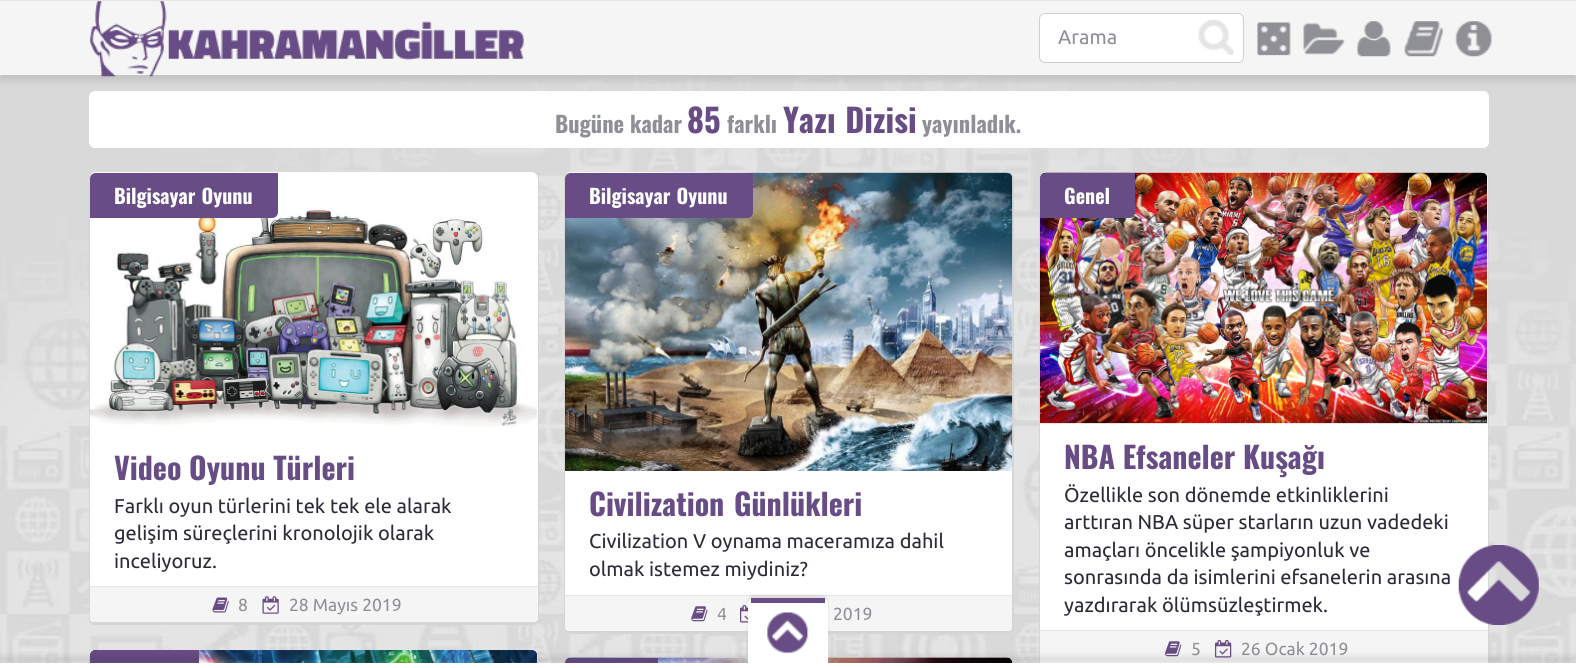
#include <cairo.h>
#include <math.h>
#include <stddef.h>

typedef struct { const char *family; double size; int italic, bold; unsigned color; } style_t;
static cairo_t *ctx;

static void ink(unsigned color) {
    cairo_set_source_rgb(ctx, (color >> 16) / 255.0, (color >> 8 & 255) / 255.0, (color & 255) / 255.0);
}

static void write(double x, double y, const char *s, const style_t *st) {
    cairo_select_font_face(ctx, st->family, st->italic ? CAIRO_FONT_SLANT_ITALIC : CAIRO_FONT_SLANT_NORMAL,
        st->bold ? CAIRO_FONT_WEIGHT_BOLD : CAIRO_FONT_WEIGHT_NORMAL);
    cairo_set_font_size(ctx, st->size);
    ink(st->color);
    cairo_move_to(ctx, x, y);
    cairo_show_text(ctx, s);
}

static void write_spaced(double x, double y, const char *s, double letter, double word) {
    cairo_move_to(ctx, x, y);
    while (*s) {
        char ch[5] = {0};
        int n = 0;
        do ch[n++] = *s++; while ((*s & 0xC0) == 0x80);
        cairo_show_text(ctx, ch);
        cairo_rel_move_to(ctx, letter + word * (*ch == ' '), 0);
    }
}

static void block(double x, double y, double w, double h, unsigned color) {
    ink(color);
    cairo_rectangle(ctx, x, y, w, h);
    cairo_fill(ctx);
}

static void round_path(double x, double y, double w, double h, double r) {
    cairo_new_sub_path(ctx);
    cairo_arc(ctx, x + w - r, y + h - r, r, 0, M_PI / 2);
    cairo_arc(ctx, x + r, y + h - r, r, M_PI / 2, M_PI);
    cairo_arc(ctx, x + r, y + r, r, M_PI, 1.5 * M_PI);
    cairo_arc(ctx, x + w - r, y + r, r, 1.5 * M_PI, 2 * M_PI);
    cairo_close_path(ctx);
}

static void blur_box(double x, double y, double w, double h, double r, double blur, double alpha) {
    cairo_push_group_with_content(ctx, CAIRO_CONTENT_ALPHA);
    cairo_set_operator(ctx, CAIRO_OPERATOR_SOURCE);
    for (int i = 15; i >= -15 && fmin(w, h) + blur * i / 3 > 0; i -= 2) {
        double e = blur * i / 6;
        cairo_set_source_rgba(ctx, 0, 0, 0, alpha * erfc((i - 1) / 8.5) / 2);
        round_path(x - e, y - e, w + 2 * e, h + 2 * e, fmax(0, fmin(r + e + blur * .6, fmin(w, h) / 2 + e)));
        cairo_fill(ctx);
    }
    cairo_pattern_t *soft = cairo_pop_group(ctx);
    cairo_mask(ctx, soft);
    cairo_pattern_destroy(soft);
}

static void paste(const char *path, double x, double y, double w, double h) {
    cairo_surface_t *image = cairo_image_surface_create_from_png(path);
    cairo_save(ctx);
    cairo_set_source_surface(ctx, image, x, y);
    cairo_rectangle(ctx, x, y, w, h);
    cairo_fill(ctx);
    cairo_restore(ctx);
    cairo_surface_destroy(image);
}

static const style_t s1 = {"Ubuntu", 20, 0, 0, 0x8f8f96};
static const style_t s2 = {"Oswald", 22.5, 0, 1, 0x8f8f96};
static const style_t s3 = {"Oswald", 32.5, 0, 1, 0x684c85};
static const style_t s4 = {"Oswald", 30, 0, 1, 0x684c85};
static const style_t s5 = {"Ubuntu", 20, 0, 0, 0x2c2c38};
static const style_t s6 = {"Ubuntu", 17.5, 0, 0, 0x8f8f96};
static const style_t s7 = {"Oswald", 20, 0, 1, 0xffffff};

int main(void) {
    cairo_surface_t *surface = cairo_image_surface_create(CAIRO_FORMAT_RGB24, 1576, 668);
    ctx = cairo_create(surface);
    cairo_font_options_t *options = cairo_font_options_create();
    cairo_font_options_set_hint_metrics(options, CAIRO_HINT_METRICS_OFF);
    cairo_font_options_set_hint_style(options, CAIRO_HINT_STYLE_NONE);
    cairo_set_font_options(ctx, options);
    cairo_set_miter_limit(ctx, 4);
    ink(0xffffff);
    cairo_paint(ctx);
    paste("pic1.png", 0, 75, 1576, 588);
    ink(0x000000);
    blur_box(0, 6, 1576, 75, 0, 3, 0.1);
    block(0, 1, 1576, 74, 0xf5f5f5);
    block(0, 0, 1576, 1, 0xe5e5e5);
    paste("pic2.png", 89, 1, 435, 76);
    ink(0xffffff);
    round_path(1039.5, 13.5, 204, 49, 5.5);
    cairo_fill_preserve(ctx);
    ink(0xcfcfcf);
    cairo_set_line_width(ctx, 1);
    cairo_stroke(ctx);
    write(1058, 44, "Arama", &s1);
    paste("pic3.png", 1198, 20, 36, 35);
    paste("pic4.png", 1257, 22, 34, 34);
    paste("pic5.png", 1303, 23, 42, 32);
    paste("pic6.png", 1357, 21, 34, 36);
    paste("pic7.png", 1404, 21, 40, 36);
    paste("pic8.png", 1455, 21, 37, 36);
    ink(0xffffff);
    round_path(89, 91, 1400, 57, 6);
    cairo_fill(ctx);
    write(555, 133, "Bugüne kadar", &s2);
    write(687, 133, "85", &s3);
    write(727, 133, "farklı", &s2);
    cairo_set_font_size(ctx, 32.5);
    ink(0x684c85);
    write_spaced(783, 133, "Yazı Dizisi", 0, 1);
    write(922, 133, "yayınladık.", &s2);
    ink(0xffffff);
    cairo_new_path(ctx);
    cairo_move_to(ctx, 95, 172);
    cairo_line_to(ctx, 532, 172);
    cairo_curve_to(ctx, 535, 172, 538, 175, 538, 179);
    cairo_line_to(ctx, 538, 619);
    cairo_curve_to(ctx, 538, 621, 535, 622, 532, 622);
    cairo_line_to(ctx, 95, 622);
    cairo_curve_to(ctx, 92, 622, 90, 621, 90, 619);
    cairo_line_to(ctx, 90, 179);
    cairo_curve_to(ctx, 90, 175, 92, 172, 95, 172);
    cairo_close_path(ctx);
    cairo_fill(ctx);
    ink(0xd5d5d5);
    cairo_set_fill_rule(ctx, CAIRO_FILL_RULE_EVEN_ODD);
    cairo_new_path(ctx);
    cairo_move_to(ctx, 95, 172);
    cairo_line_to(ctx, 532, 172);
    cairo_curve_to(ctx, 536, 172, 539, 175, 539, 179);
    cairo_line_to(ctx, 539, 619);
    cairo_curve_to(ctx, 539, 622, 536, 625, 532, 625);
    cairo_line_to(ctx, 95, 625);
    cairo_curve_to(ctx, 92, 625, 89, 622, 89, 619);
    cairo_line_to(ctx, 89, 179);
    cairo_curve_to(ctx, 89, 175, 92, 172, 95, 172);
    cairo_close_path(ctx);
    cairo_move_to(ctx, 95, 172);
    cairo_line_to(ctx, 532, 172);
    cairo_curve_to(ctx, 535, 172, 538, 175, 538, 179);
    cairo_line_to(ctx, 538, 619);
    cairo_curve_to(ctx, 538, 621, 535, 622, 532, 622);
    cairo_line_to(ctx, 95, 622);
    cairo_curve_to(ctx, 92, 622, 90, 621, 90, 619);
    cairo_line_to(ctx, 90, 179);
    cairo_curve_to(ctx, 90, 175, 92, 172, 95, 172);
    cairo_close_path(ctx);
    cairo_fill(ctx);
    paste("pic9.png", 90, 174, 447, 253);
    ink(0x684c85);
    cairo_new_path(ctx);
    cairo_move_to(ctx, 96, 173);
    cairo_line_to(ctx, 278, 173);
    cairo_line_to(ctx, 278, 212);
    cairo_curve_to(ctx, 278, 215.5, 275.5, 218, 272, 218);
    cairo_line_to(ctx, 90, 218);
    cairo_line_to(ctx, 90, 179);
    cairo_curve_to(ctx, 90, 175.5, 92.5, 173, 96, 173);
    cairo_close_path(ctx);
    cairo_fill(ctx);
    cairo_set_font_size(ctx, 20);
    ink(0xffffff);
    write_spaced(114, 204, "Bilgisayar Oyunu", 0, 1);
    write(114, 480, "Video Oyunu Türleri", &s4);
    write(114, 513, "Farklı oyun türlerini tek tek ele alarak", &s5);
    write(114, 540, "gelişim süreçlerini kronolojik olarak", &s5);
    write(114, 568, "inceliyoruz.", &s5);
    ink(0xf5f5f5);
    cairo_set_fill_rule(ctx, CAIRO_FILL_RULE_WINDING);
    cairo_new_path(ctx);
    cairo_move_to(ctx, 90, 586);
    cairo_line_to(ctx, 90, 619);
    cairo_curve_to(ctx, 90, 621, 92, 622, 95, 622);
    cairo_line_to(ctx, 532, 622);
    cairo_curve_to(ctx, 535, 622, 538, 621, 538, 619);
    cairo_line_to(ctx, 538, 586);
    cairo_close_path(ctx);
    cairo_fill(ctx);
    block(90, 586, 448, 1, 0xe5e5e5);
    paste("pic10.png", 212, 597, 17, 16);
    write(238, 611, "8", &s6);
    paste("pic11.png", 262, 596, 17, 18);
    write(289, 611, "28 Mayıs 2019", &s6);
    ink(0xffffff);
    cairo_new_path(ctx);
    cairo_move_to(ctx, 570, 172);
    cairo_line_to(ctx, 1008, 172);
    cairo_curve_to(ctx, 1010, 172, 1012, 175, 1012, 179);
    cairo_line_to(ctx, 1012, 628);
    cairo_curve_to(ctx, 1012, 630, 1010, 631, 1008, 631);
    cairo_line_to(ctx, 570, 631);
    cairo_curve_to(ctx, 567, 631, 565, 630, 565, 628);
    cairo_line_to(ctx, 565, 179);
    cairo_curve_to(ctx, 565, 175, 567, 172, 570, 172);
    cairo_close_path(ctx);
    cairo_fill(ctx);
    ink(0xd5d5d5);
    cairo_set_fill_rule(ctx, CAIRO_FILL_RULE_EVEN_ODD);
    cairo_new_path(ctx);
    cairo_move_to(ctx, 570, 172);
    cairo_line_to(ctx, 1008, 172);
    cairo_curve_to(ctx, 1011, 172, 1014, 175, 1014, 179);
    cairo_line_to(ctx, 1014, 628);
    cairo_curve_to(ctx, 1014, 631, 1011, 634, 1008, 634);
    cairo_line_to(ctx, 570, 634);
    cairo_curve_to(ctx, 567, 634, 564, 631, 564, 628);
    cairo_line_to(ctx, 564, 179);
    cairo_curve_to(ctx, 564, 175, 567, 172, 570, 172);
    cairo_close_path(ctx);
    cairo_move_to(ctx, 570, 172);
    cairo_line_to(ctx, 1008, 172);
    cairo_curve_to(ctx, 1010, 172, 1012, 175, 1012, 179);
    cairo_line_to(ctx, 1012, 628);
    cairo_curve_to(ctx, 1012, 630, 1010, 631, 1008, 631);
    cairo_line_to(ctx, 570, 631);
    cairo_curve_to(ctx, 567, 631, 565, 630, 565, 628);
    cairo_line_to(ctx, 565, 179);
    cairo_curve_to(ctx, 565, 175, 567, 172, 570, 172);
    cairo_close_path(ctx);
    cairo_fill(ctx);
    paste("pic12.png", 565, 172, 448, 299);
    ink(0x684c85);
    cairo_new_path(ctx);
    cairo_move_to(ctx, 571, 173);
    cairo_line_to(ctx, 753, 173);
    cairo_line_to(ctx, 753, 212);
    cairo_curve_to(ctx, 753, 215.5, 750.5, 218, 747, 218);
    cairo_line_to(ctx, 565, 218);
    cairo_line_to(ctx, 565, 179);
    cairo_curve_to(ctx, 565, 175.5, 567.5, 173, 571, 173);
    cairo_close_path(ctx);
    cairo_fill(ctx);
    cairo_select_font_face(ctx, "Oswald", CAIRO_FONT_SLANT_NORMAL, CAIRO_FONT_WEIGHT_BOLD);
    cairo_set_font_size(ctx, 20);
    ink(0xffffff);
    write_spaced(589, 204, "Bilgisayar Oyunu", 0, 1);
    cairo_set_font_size(ctx, 30);
    ink(0x684c85);
    write_spaced(589, 516, "Civilization Günlükleri", 0, 2);
    write(589, 548, "Civilization V oynama maceramıza dahil", &s5);
    write(589, 576, "olmak istemez miydiniz?", &s5);
    ink(0xf5f5f5);
    cairo_set_fill_rule(ctx, CAIRO_FILL_RULE_WINDING);
    cairo_new_path(ctx);
    cairo_move_to(ctx, 565, 595);
    cairo_line_to(ctx, 565, 628);
    cairo_curve_to(ctx, 565, 629, 566, 630, 568, 631);
    cairo_line_to(ctx, 1009, 631);
    cairo_curve_to(ctx, 1011, 630, 1012, 629, 1012, 628);
    cairo_line_to(ctx, 1012, 595);
    cairo_close_path(ctx);
    cairo_fill(ctx);
    block(565, 595, 447, 1, 0xe5e5e5);
    paste("pic13.png", 691, 606, 17, 16);
    write(717, 620, "4", &s6);
    paste("pic14.png", 740, 605, 8, 18);
    write(833, 620, "2019", &s6);
    ink(0xffffff);
    cairo_new_path(ctx);
    cairo_move_to(ctx, 1045, 172);
    cairo_line_to(ctx, 1482, 172);
    cairo_curve_to(ctx, 1485, 172, 1488, 175, 1488, 179);
    cairo_line_to(ctx, 1488, 662);
    cairo_curve_to(ctx, 1488, 665, 1485, 666, 1482, 666);
    cairo_line_to(ctx, 1045, 666);
    cairo_curve_to(ctx, 1042, 666, 1040, 665, 1040, 662);
    cairo_line_to(ctx, 1040, 179);
    cairo_curve_to(ctx, 1040, 175, 1042, 172, 1045, 172);
    cairo_close_path(ctx);
    cairo_fill(ctx);
    ink(0xd5d5d5);
    cairo_set_fill_rule(ctx, CAIRO_FILL_RULE_EVEN_ODD);
    cairo_new_path(ctx);
    cairo_move_to(ctx, 1045, 172);
    cairo_line_to(ctx, 1482, 172);
    cairo_curve_to(ctx, 1486, 172, 1489, 175, 1489, 179);
    cairo_line_to(ctx, 1489, 662);
    cairo_curve_to(ctx, 1489, 666, 1486, 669, 1482, 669);
    cairo_line_to(ctx, 1045, 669);
    cairo_curve_to(ctx, 1042, 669, 1039, 666, 1039, 662);
    cairo_line_to(ctx, 1039, 179);
    cairo_curve_to(ctx, 1039, 175, 1042, 172, 1045, 172);
    cairo_close_path(ctx);
    cairo_move_to(ctx, 1045, 172);
    cairo_line_to(ctx, 1482, 172);
    cairo_curve_to(ctx, 1485, 172, 1488, 175, 1488, 179);
    cairo_line_to(ctx, 1488, 662);
    cairo_curve_to(ctx, 1488, 665, 1485, 666, 1482, 666);
    cairo_line_to(ctx, 1045, 666);
    cairo_curve_to(ctx, 1042, 666, 1040, 665, 1040, 662);
    cairo_line_to(ctx, 1040, 179);
    cairo_curve_to(ctx, 1040, 175, 1042, 172, 1045, 172);
    cairo_close_path(ctx);
    cairo_fill(ctx);
    paste("pic15.png", 1040, 172, 448, 252);
    ink(0x684c85);
    cairo_new_path(ctx);
    cairo_move_to(ctx, 1046, 173);
    cairo_line_to(ctx, 1135, 173);
    cairo_line_to(ctx, 1135, 212);
    cairo_curve_to(ctx, 1135, 215.5, 1132.5, 218, 1129, 218);
    cairo_line_to(ctx, 1040, 218);
    cairo_line_to(ctx, 1040, 179);
    cairo_curve_to(ctx, 1040, 175.5, 1042.5, 173, 1046, 173);
    cairo_close_path(ctx);
    cairo_fill(ctx);
    write(1064, 204, "Genel", &s7);
    write(1064, 469, "NBA Efsaneler Kuşağı", &s4);
    write(1064, 502, "Özellikle son dönemde etkinliklerini", &s5);
    write(1064, 529, "arttıran NBA süper starların uzun vadedeki", &s5);
    write(1064, 557, "amaçları öncelikle şampiyonluk ve", &s5);
    write(1064, 584, "sonrasında da isimlerini efsanelerin arasına", &s5);
    write(1064, 612, "yazdırarak ölümsüzleştirmek.", &s5);
    ink(0xf5f5f5);
    cairo_set_fill_rule(ctx, CAIRO_FILL_RULE_WINDING);
    cairo_new_path(ctx);
    cairo_move_to(ctx, 1040, 630);
    cairo_line_to(ctx, 1040, 662);
    cairo_curve_to(ctx, 1040, 664, 1041, 665, 1043, 666);
    cairo_line_to(ctx, 1484, 666);
    cairo_curve_to(ctx, 1486, 665, 1488, 664, 1488, 662);
    cairo_line_to(ctx, 1488, 630);
    cairo_close_path(ctx);
    cairo_fill(ctx);
    block(1040, 630, 448, 1, 0xe5e5e5);
    paste("pic16.png", 1165, 641, 17, 16);
    write(1191, 655, "5", &s6);
    paste("pic17.png", 1215, 640, 17, 18);
    write(1241, 655, "26 Ocak 2019", &s6);
    ink(0xffffff);
    cairo_new_path(ctx);
    cairo_move_to(ctx, 95, 650);
    cairo_line_to(ctx, 532, 650);
    cairo_curve_to(ctx, 535, 650, 538, 653, 538, 656);
    cairo_line_to(ctx, 538, 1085);
    cairo_curve_to(ctx, 538, 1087, 535, 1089, 532, 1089);
    cairo_line_to(ctx, 95, 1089);
    cairo_curve_to(ctx, 92, 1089, 90, 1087, 90, 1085);
    cairo_line_to(ctx, 90, 656);
    cairo_curve_to(ctx, 90, 653, 92, 650, 95, 650);
    cairo_close_path(ctx);
    cairo_fill(ctx);
    ink(0xd5d5d5);
    cairo_set_fill_rule(ctx, CAIRO_FILL_RULE_EVEN_ODD);
    cairo_new_path(ctx);
    cairo_move_to(ctx, 95, 650);
    cairo_line_to(ctx, 532, 650);
    cairo_curve_to(ctx, 536, 650, 539, 653, 539, 656);
    cairo_line_to(ctx, 539, 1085);
    cairo_curve_to(ctx, 539, 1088, 536, 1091, 532, 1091);
    cairo_line_to(ctx, 95, 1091);
    cairo_curve_to(ctx, 92, 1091, 89, 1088, 89, 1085);
    cairo_line_to(ctx, 89, 656);
    cairo_curve_to(ctx, 89, 653, 92, 650, 95, 650);
    cairo_close_path(ctx);
    cairo_move_to(ctx, 95, 650);
    cairo_line_to(ctx, 532, 650);
    cairo_curve_to(ctx, 535, 650, 538, 653, 538, 656);
    cairo_line_to(ctx, 538, 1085);
    cairo_curve_to(ctx, 538, 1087, 535, 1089, 532, 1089);
    cairo_line_to(ctx, 95, 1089);
    cairo_curve_to(ctx, 92, 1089, 90, 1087, 90, 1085);
    cairo_line_to(ctx, 90, 656);
    cairo_curve_to(ctx, 90, 653, 92, 650, 95, 650);
    cairo_close_path(ctx);
    cairo_fill(ctx);
    paste("pic18.png", 90, 650, 448, 13);
    ink(0x684c85);
    cairo_new_path(ctx);
    cairo_move_to(ctx, 96, 650);
    cairo_line_to(ctx, 199, 650);
    cairo_line_to(ctx, 199, 668);
    cairo_curve_to(ctx, 199, 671.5, 196.5, 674, 193, 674);
    cairo_line_to(ctx, 90, 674);
    cairo_line_to(ctx, 90, 656);
    cairo_curve_to(ctx, 90, 652.5, 92.5, 650, 96, 650);
    cairo_close_path(ctx);
    cairo_fill(ctx);
    ink(0xd5d5d5);
    cairo_new_path(ctx);
    cairo_move_to(ctx, 570, 658);
    cairo_line_to(ctx, 1008, 658);
    cairo_curve_to(ctx, 1011, 658, 1014, 660, 1014, 664);
    cairo_line_to(ctx, 1014, 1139);
    cairo_curve_to(ctx, 1014, 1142, 1011, 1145, 1008, 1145);
    cairo_line_to(ctx, 570, 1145);
    cairo_curve_to(ctx, 567, 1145, 564, 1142, 564, 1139);
    cairo_line_to(ctx, 564, 664);
    cairo_curve_to(ctx, 564, 660, 567, 658, 570, 658);
    cairo_close_path(ctx);
    cairo_move_to(ctx, 570, 658);
    cairo_line_to(ctx, 1008, 658);
    cairo_curve_to(ctx, 1010, 658, 1012, 660, 1012, 664);
    cairo_line_to(ctx, 1012, 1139);
    cairo_curve_to(ctx, 1012, 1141, 1010, 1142, 1008, 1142);
    cairo_line_to(ctx, 570, 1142);
    cairo_curve_to(ctx, 567, 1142, 565, 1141, 565, 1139);
    cairo_line_to(ctx, 565, 664);
    cairo_curve_to(ctx, 565, 660, 567, 658, 570, 658);
    cairo_close_path(ctx);
    cairo_fill(ctx);
    paste("pic19.png", 565, 657, 448, 6);
    ink(0x684c85);
    cairo_new_path(ctx);
    cairo_move_to(ctx, 571, 658);
    cairo_line_to(ctx, 658, 658);
    cairo_line_to(ctx, 658, 668);
    cairo_curve_to(ctx, 658, 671.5, 655.5, 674, 652, 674);
    cairo_line_to(ctx, 565, 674);
    cairo_line_to(ctx, 565, 664);
    cairo_curve_to(ctx, 565, 660.5, 567.5, 658, 571, 658);
    cairo_close_path(ctx);
    cairo_fill(ctx);
    ink(0x000000);
    blur_box(0, 656, 1576, 7, 0, 3, 0.1);
    paste("pic20.png", 1458, 545, 81, 80);
    block(0, 663, 1576, 5, 0xffffff);
    ink(0x000000);
    blur_box(748, 595, 80, 65, 6, 1, 0.1);
    ink(0xffffff);
    cairo_new_path(ctx);
    cairo_move_to(ctx, 754, 598);
    cairo_line_to(ctx, 822, 598);
    cairo_curve_to(ctx, 825.5, 598, 828, 600.5, 828, 604);
    cairo_line_to(ctx, 828, 663);
    cairo_line_to(ctx, 748, 663);
    cairo_line_to(ctx, 748, 604);
    cairo_curve_to(ctx, 748, 600.5, 750.5, 598, 754, 598);
    cairo_close_path(ctx);
    cairo_fill(ctx);
    paste("pic21.png", 767, 612, 42, 42);
    block(751, 598, 74, 5, 0x684c85);
    cairo_surface_write_to_png(surface, "screenshot.png");
    cairo_font_options_destroy(options);
    cairo_destroy(ctx);
    cairo_surface_destroy(surface);
    return 0;
}
